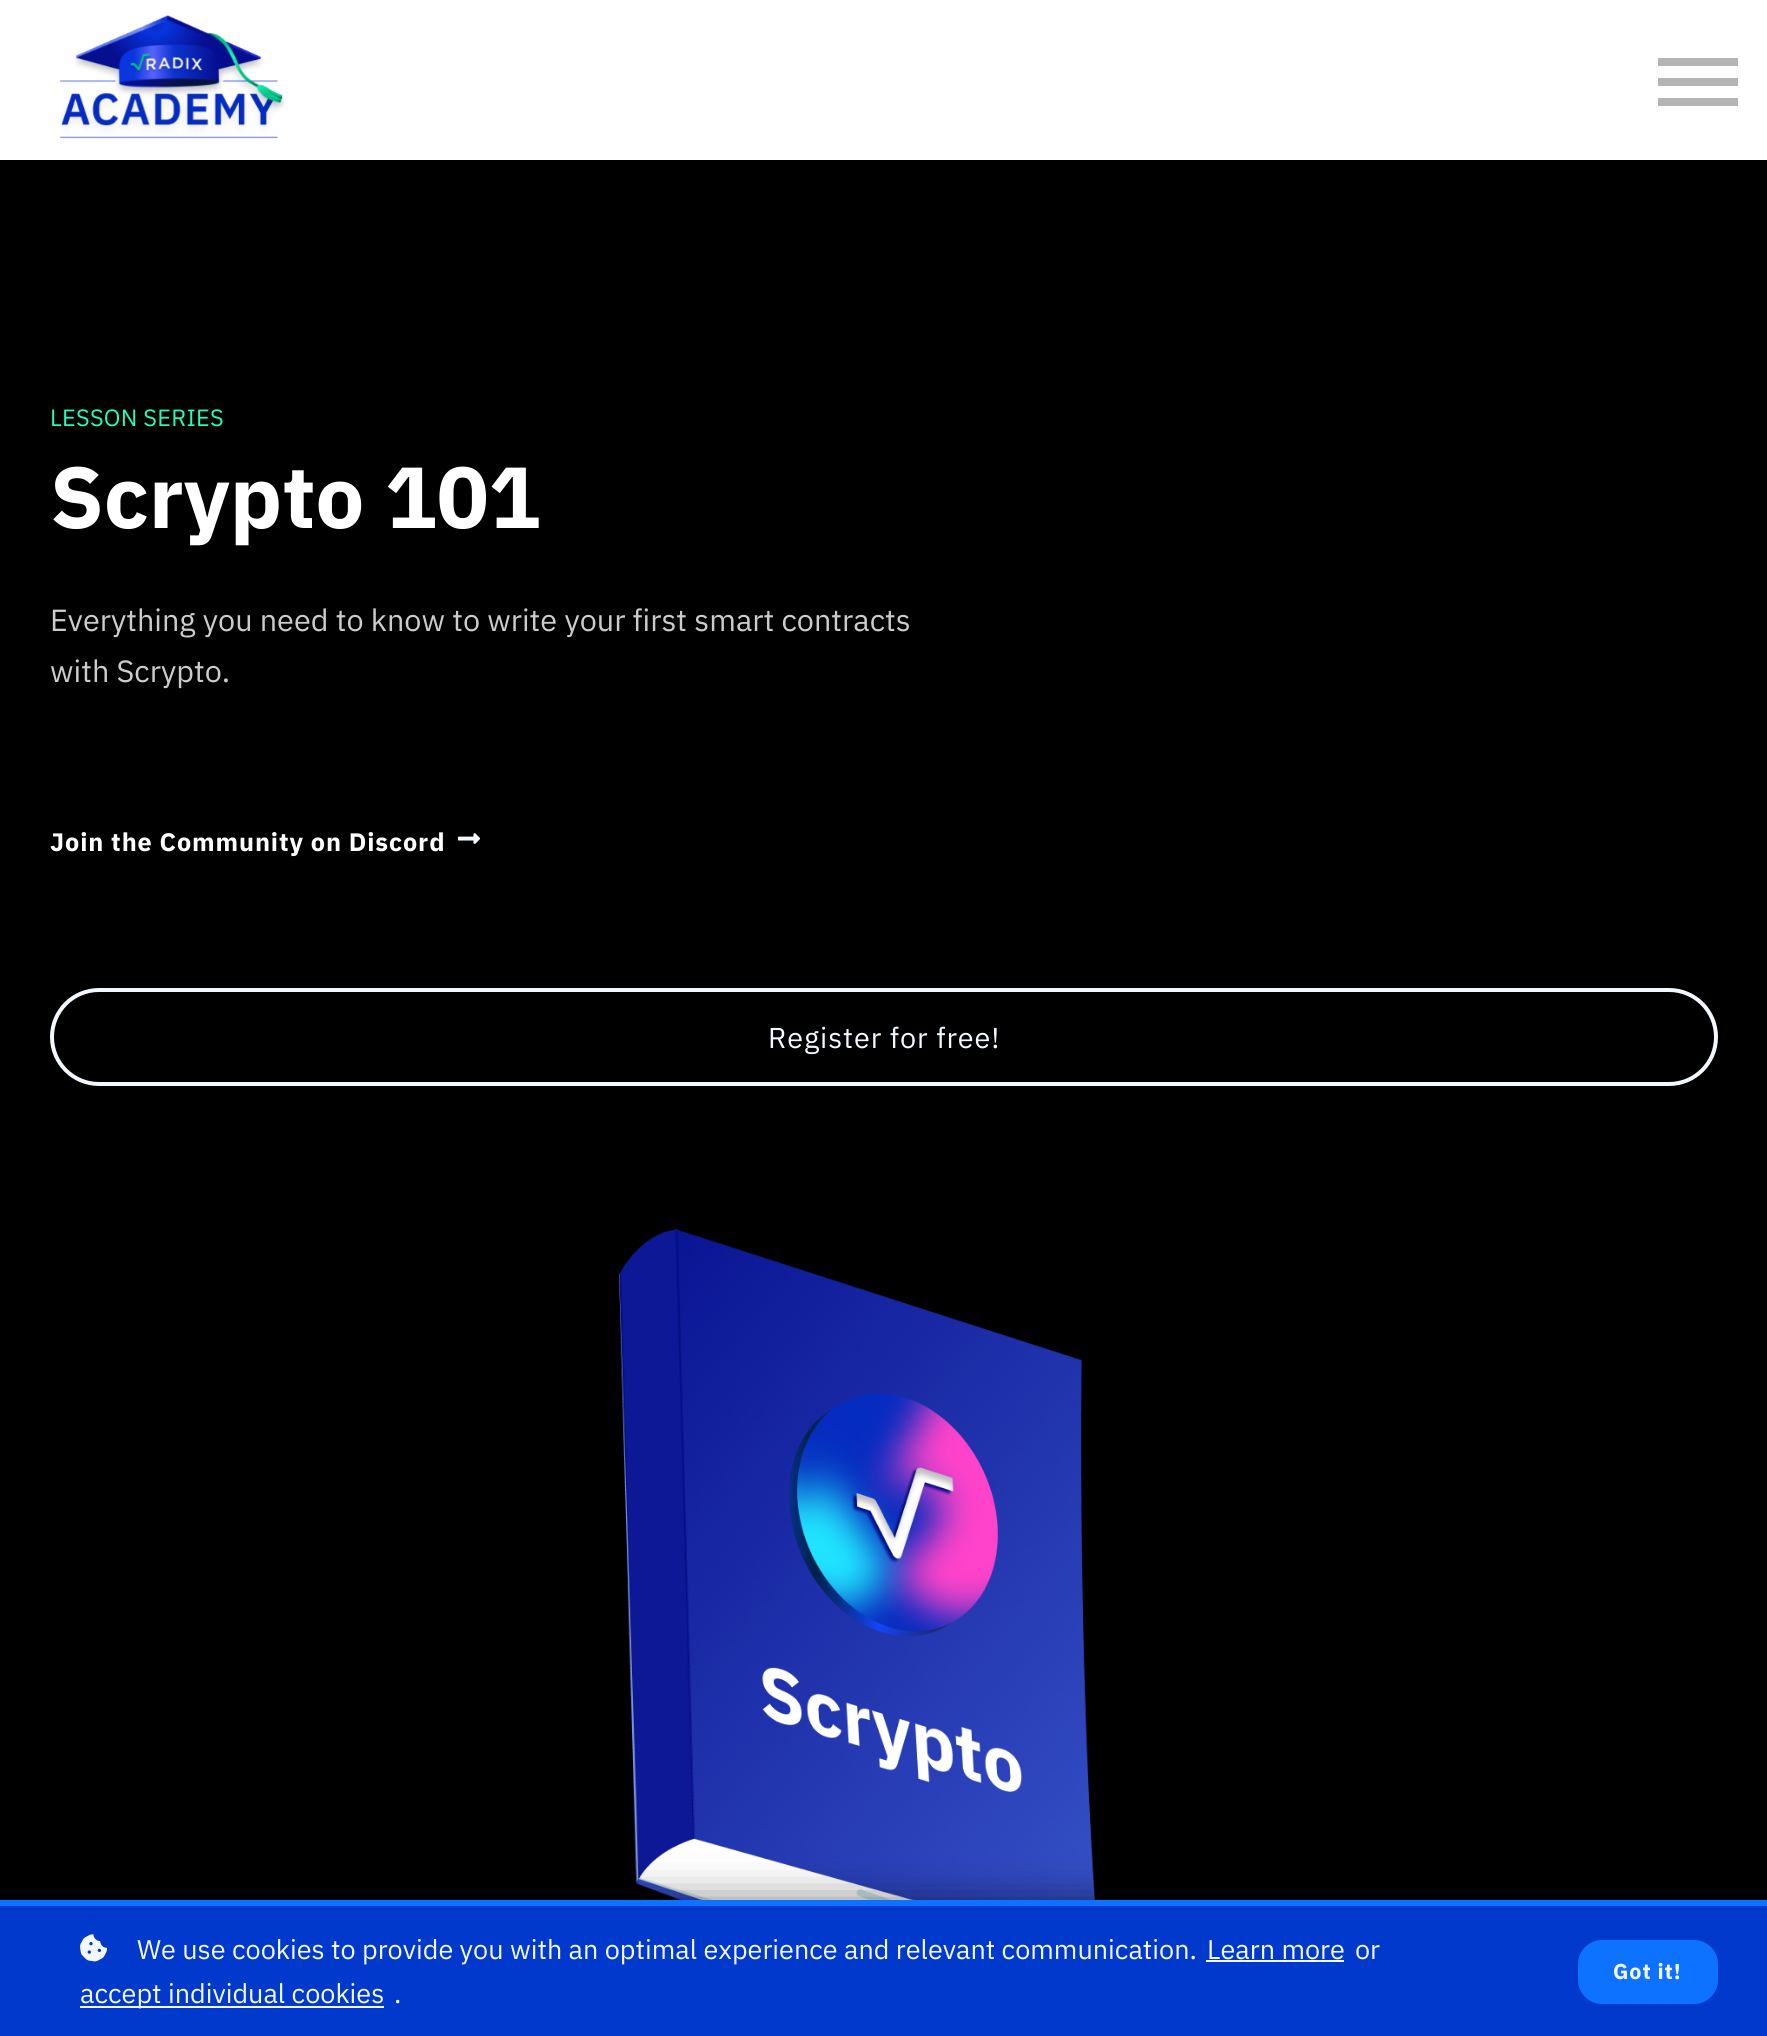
#include <cairo.h>
#include <math.h>
#include <stddef.h>

typedef struct { const char *family; double size; int italic, bold; unsigned color; } style_t;
static cairo_t *ctx;

static void ink(unsigned color) {
    cairo_set_source_rgb(ctx, (color >> 16) / 255.0, (color >> 8 & 255) / 255.0, (color & 255) / 255.0);
}

static void write(double x, double y, const char *s, const style_t *st) {
    cairo_select_font_face(ctx, st->family, st->italic ? CAIRO_FONT_SLANT_ITALIC : CAIRO_FONT_SLANT_NORMAL,
        st->bold ? CAIRO_FONT_WEIGHT_BOLD : CAIRO_FONT_WEIGHT_NORMAL);
    cairo_set_font_size(ctx, st->size);
    ink(st->color);
    cairo_move_to(ctx, x, y);
    cairo_show_text(ctx, s);
}

static void write_spaced(double x, double y, const char *s, double letter, double word) {
    cairo_move_to(ctx, x, y);
    while (*s) {
        char ch[5] = {0};
        int n = 0;
        do ch[n++] = *s++; while ((*s & 0xC0) == 0x80);
        cairo_show_text(ctx, ch);
        cairo_rel_move_to(ctx, letter + word * (*ch == ' '), 0);
    }
}

static void block(double x, double y, double w, double h, unsigned color) {
    ink(color);
    cairo_rectangle(ctx, x, y, w, h);
    cairo_fill(ctx);
}

static void round_path(double x, double y, double w, double h, double r) {
    cairo_new_sub_path(ctx);
    cairo_arc(ctx, x + w - r, y + h - r, r, 0, M_PI / 2);
    cairo_arc(ctx, x + r, y + h - r, r, M_PI / 2, M_PI);
    cairo_arc(ctx, x + r, y + r, r, M_PI, 1.5 * M_PI);
    cairo_arc(ctx, x + w - r, y + r, r, 1.5 * M_PI, 2 * M_PI);
    cairo_close_path(ctx);
}

static void blur_box(double x, double y, double w, double h, double r, double blur, double alpha) {
    cairo_push_group_with_content(ctx, CAIRO_CONTENT_ALPHA);
    cairo_set_operator(ctx, CAIRO_OPERATOR_SOURCE);
    for (int i = 15; i >= -15 && fmin(w, h) + blur * i / 3 > 0; i -= 2) {
        double e = blur * i / 6;
        cairo_set_source_rgba(ctx, 0, 0, 0, alpha * erfc((i - 1) / 8.5) / 2);
        round_path(x - e, y - e, w + 2 * e, h + 2 * e, fmax(0, fmin(r + e + blur * .6, fmin(w, h) / 2 + e)));
        cairo_fill(ctx);
    }
    cairo_pattern_t *soft = cairo_pop_group(ctx);
    cairo_mask(ctx, soft);
    cairo_pattern_destroy(soft);
}

static void paste(const char *path, double x, double y, double w, double h) {
    cairo_surface_t *image = cairo_image_surface_create_from_png(path);
    cairo_save(ctx);
    cairo_set_source_surface(ctx, image, x, y);
    cairo_rectangle(ctx, x, y, w, h);
    cairo_fill(ctx);
    cairo_restore(ctx);
    cairo_surface_destroy(image);
}

static const style_t s1 = {"IBM Plex Sans", 86.5, 0, 1, 0xffffff};
static const style_t s2 = {"IBM Plex Sans", 30.6, 0, 0, 0xcccccc};
static const style_t s3 = {"IBM Plex Sans", 27, 0, 0, 0xf3f8ff};

int main(void) {
    cairo_surface_t *surface = cairo_image_surface_create(CAIRO_FORMAT_RGB24, 1767, 2036);
    ctx = cairo_create(surface);
    cairo_font_options_t *options = cairo_font_options_create();
    cairo_font_options_set_hint_metrics(options, CAIRO_HINT_METRICS_OFF);
    cairo_font_options_set_hint_style(options, CAIRO_HINT_STYLE_NONE);
    cairo_set_font_options(ctx, options);
    cairo_set_miter_limit(ctx, 4);
    ink(0xffffff);
    cairo_paint(ctx);
    paste("pic1.png", 60, 15, 226, 124);
    block(1658, 98, 80, 8, 0xb4b4b4);
    block(1658, 58, 80, 8, 0xb4b4b4);
    block(1658, 78, 80, 8, 0xb4b4b4);
    block(0, 160, 1767, 1740, 0x000000);
    cairo_select_font_face(ctx, "IBM Plex Sans", CAIRO_FONT_SLANT_NORMAL, CAIRO_FONT_WEIGHT_NORMAL);
    cairo_set_font_size(ctx, 23.5);
    ink(0x21ffbe);
    write_spaced(50, 426, "LESSON SERIES", 0.25, 0);
    write(50, 528, "Scrypto 101", &s1);
    write(50, 631, "Everything you need to know to write your first smart contracts", &s2);
    write(50, 682, "with Scrypto.", &s2);
    cairo_select_font_face(ctx, "IBM Plex Sans", CAIRO_FONT_SLANT_NORMAL, CAIRO_FONT_WEIGHT_BOLD);
    cairo_set_font_size(ctx, 25.25);
    ink(0xffffff);
    write_spaced(50, 851, "Join the Community on Discord", 0.9, 0);
    paste("pic2.png", 458, 833, 22, 11);
    round_path(52, 990, 1664, 94, 47);
    ink(0xf3f8ff);
    cairo_set_line_width(ctx, 4);
    cairo_stroke(ctx);
    cairo_select_font_face(ctx, "IBM Plex Sans", CAIRO_FONT_SLANT_NORMAL, CAIRO_FONT_WEIGHT_NORMAL);
    cairo_set_font_size(ctx, 28.75);
    write_spaced(768, 1048, "Register for free!", 0.9, 0);
    paste("pic3.png", 618, 1229, 481, 671);
    ink(0x000000);
    blur_box(0, 1900, 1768, 136, 0, 20, 0.5);
    block(0, 1906, 1767, 130, 0x0039cc);
    block(0, 1900, 1767, 6, 0x0c72ff);
    paste("pic4.png", 80, 1934, 27, 28);
    write(137, 1959, "We use cookies to provide you with an optimal experience and relevant communication.", &s3);
    write(1207, 1959, "Learn more", &s3);
    block(1206, 1960, 138, 2, 0xf3f8ff);
    write(1355, 1959, "or", &s3);
    block(80, 2006, 304, 2, 0xf3f8ff);
    write(80, 2003, "accept individual cookies", &s3);
    write(394, 2003, ".", &s3);
    ink(0x0c72ff);
    round_path(1578, 1940, 140, 64, 24);
    cairo_fill(ctx);
    cairo_select_font_face(ctx, "IBM Plex Sans", CAIRO_FONT_SLANT_NORMAL, CAIRO_FONT_WEIGHT_BOLD);
    cairo_set_font_size(ctx, 21.5);
    ink(0xf3f8ff);
    write_spaced(1613, 1979, "Got it!", 0.9, 0);
    cairo_surface_write_to_png(surface, "screenshot.png");
    cairo_font_options_destroy(options);
    cairo_destroy(ctx);
    cairo_surface_destroy(surface);
    return 0;
}
